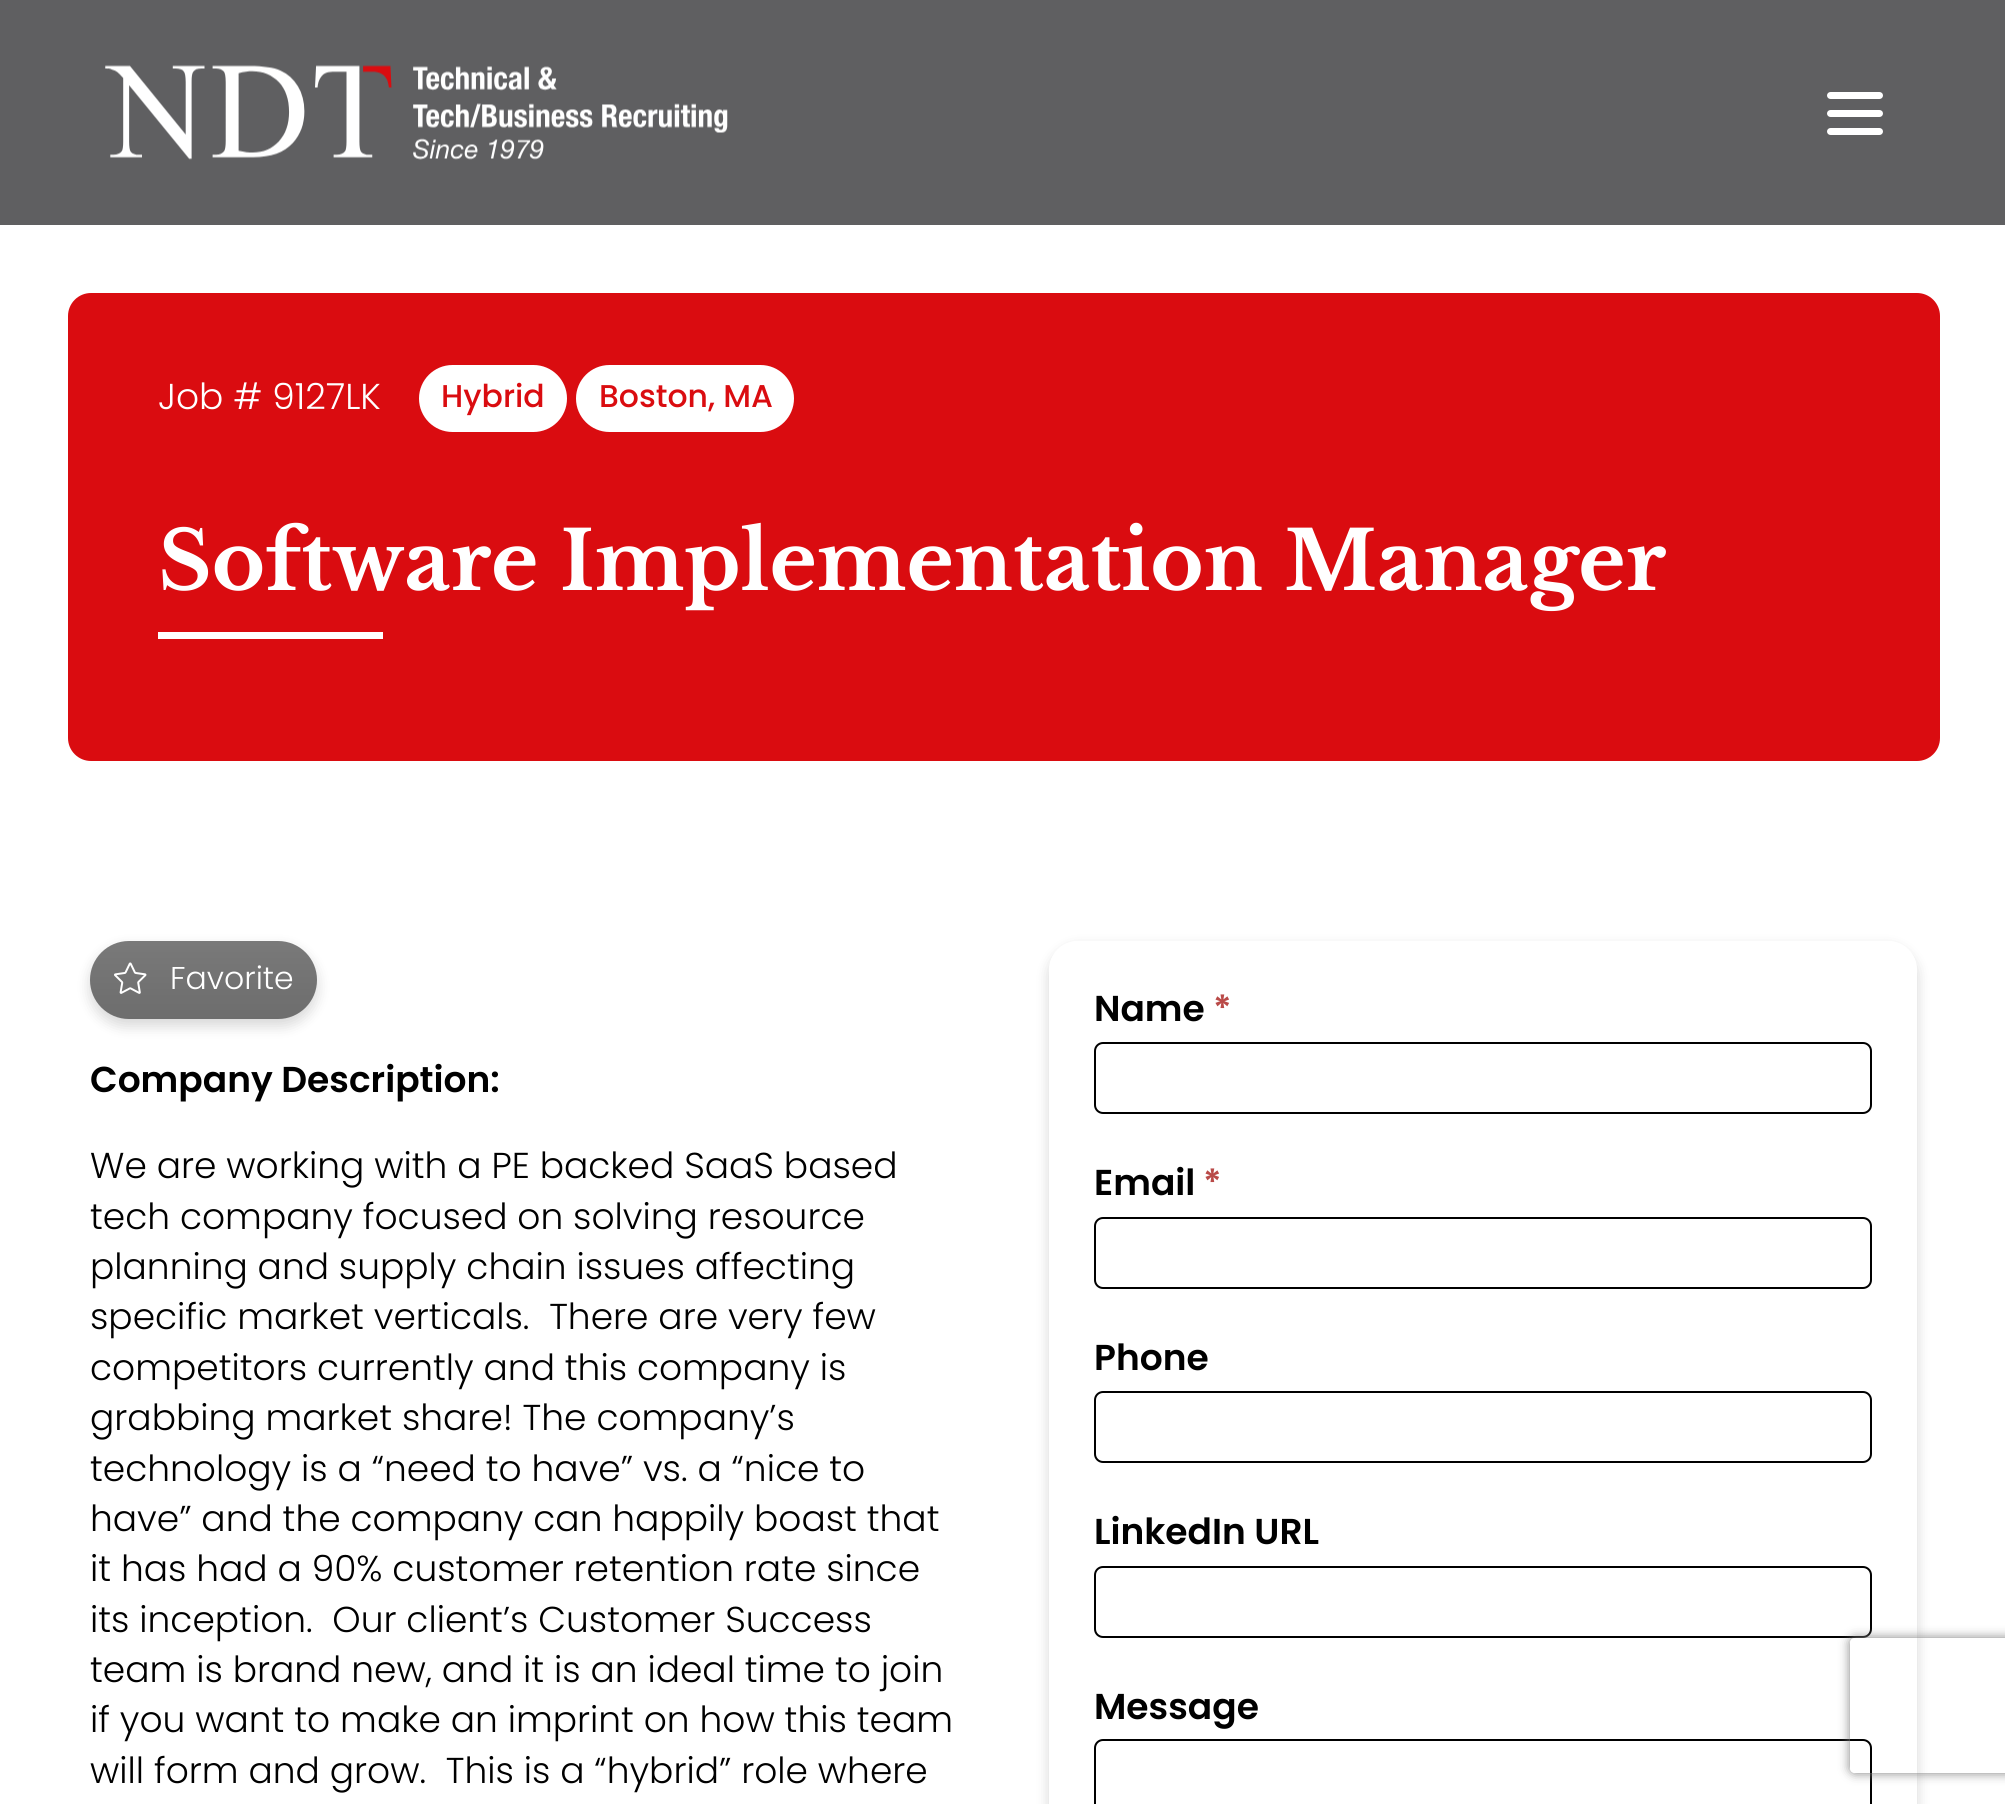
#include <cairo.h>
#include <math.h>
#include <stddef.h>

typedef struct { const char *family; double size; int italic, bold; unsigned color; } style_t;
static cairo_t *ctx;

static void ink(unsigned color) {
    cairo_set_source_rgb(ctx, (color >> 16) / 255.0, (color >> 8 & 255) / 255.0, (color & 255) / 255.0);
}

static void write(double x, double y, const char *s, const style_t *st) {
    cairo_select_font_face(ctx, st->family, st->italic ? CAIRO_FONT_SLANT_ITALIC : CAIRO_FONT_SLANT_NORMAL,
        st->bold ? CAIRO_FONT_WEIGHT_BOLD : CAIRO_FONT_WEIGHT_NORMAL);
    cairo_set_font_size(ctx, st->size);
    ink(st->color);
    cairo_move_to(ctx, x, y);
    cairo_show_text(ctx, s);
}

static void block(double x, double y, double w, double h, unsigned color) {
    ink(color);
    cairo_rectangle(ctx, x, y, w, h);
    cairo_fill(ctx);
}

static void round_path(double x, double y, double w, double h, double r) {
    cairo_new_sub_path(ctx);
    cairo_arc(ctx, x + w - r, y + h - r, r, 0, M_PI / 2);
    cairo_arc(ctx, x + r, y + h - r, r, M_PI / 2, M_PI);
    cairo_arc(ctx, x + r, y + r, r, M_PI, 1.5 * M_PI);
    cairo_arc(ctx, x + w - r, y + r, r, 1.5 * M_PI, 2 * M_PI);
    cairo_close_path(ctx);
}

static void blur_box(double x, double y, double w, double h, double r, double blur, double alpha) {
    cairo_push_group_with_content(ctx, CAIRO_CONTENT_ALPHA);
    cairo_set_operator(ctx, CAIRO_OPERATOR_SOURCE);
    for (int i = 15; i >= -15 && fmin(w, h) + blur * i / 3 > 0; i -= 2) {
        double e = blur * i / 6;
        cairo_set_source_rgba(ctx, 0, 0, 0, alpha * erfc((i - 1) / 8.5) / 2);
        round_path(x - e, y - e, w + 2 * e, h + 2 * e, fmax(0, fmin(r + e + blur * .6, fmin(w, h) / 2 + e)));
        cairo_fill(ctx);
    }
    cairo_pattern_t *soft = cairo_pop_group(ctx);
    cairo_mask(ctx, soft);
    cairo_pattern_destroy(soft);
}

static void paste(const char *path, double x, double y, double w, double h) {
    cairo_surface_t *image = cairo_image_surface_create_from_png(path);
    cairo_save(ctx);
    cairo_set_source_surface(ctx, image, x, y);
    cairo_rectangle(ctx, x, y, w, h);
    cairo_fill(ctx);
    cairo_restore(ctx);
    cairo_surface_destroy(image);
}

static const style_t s1 = {"Poppins Light", 36, 0, 0, 0xffffff};
static const style_t s2 = {"Poppins Medium", 31.5, 0, 0, 0xda0c10};
static const style_t s3 = {"Libre Baskerville", 81, 0, 1, 0xffffff};
static const style_t s4 = {"Poppins Light", 31.5, 0, 0, 0xffffff};
static const style_t s5 = {"Poppins SemiBold", 36, 0, 0, 0x000000};
static const style_t s6 = {"Poppins Light", 36, 0, 0, 0x000000};
static const style_t s7 = {"Poppins SemiBold", 36, 0, 0, 0xb94a48};

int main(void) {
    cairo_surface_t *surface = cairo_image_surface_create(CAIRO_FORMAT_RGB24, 2005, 1804);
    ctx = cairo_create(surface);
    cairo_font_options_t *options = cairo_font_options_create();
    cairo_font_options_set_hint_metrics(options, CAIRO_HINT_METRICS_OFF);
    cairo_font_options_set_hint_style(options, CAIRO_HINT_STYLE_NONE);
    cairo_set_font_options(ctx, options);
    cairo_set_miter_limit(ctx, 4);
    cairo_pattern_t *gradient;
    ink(0xffffff);
    cairo_paint(ctx);
    block(0, 0, 2005, 225, 0x5f5f61);
    paste("pic1.png", 105, 65, 623, 95);
    ink(0xffffff);
    round_path(1827, 110, 56, 7, 3.5);
    cairo_fill(ctx);
    round_path(1827, 92, 56, 7, 3.5);
    cairo_fill(ctx);
    round_path(1827, 128, 56, 7, 3.5);
    cairo_fill(ctx);
    ink(0xda0c10);
    round_path(68, 293, 1872, 468, 23);
    cairo_fill(ctx);
    write(158, 409, "Job # 9127LK", &s1);
    round_path(419, 365, 148, 67, 33.5);
    cairo_fill(ctx);
    write(441, 407, "Hybrid", &s2);
    ink(0xffffff);
    round_path(576, 365, 218, 67, 33.5);
    cairo_fill(ctx);
    write(599, 407, "Boston, MA", &s2);
    write(158, 590, "Software Implementation Manager", &s3);
    block(158, 632, 225, 7, 0xffffff);
    ink(0x000000);
    blur_box(90, 947, 227, 79, 39.5, 7, 0.16);
    ink(0x797979);
    round_path(90, 941, 227, 78, 39);
    cairo_fill(ctx);
    gradient = cairo_pattern_create_linear(204, 941, 204, 1571);
    cairo_pattern_add_color_stop_rgba(gradient, 0, 0, 0, 0, 0);
    cairo_pattern_add_color_stop_rgba(gradient, 1, 0, 0, 0, 0.8);
    cairo_set_source(ctx, gradient);
    cairo_pattern_destroy(gradient);
    round_path(90, 941, 227, 78, 39);
    cairo_fill(ctx);
    paste("pic2.png", 114, 962, 33, 32);
    write(170, 989, "Favorite", &s4);
    write(90, 1092, "Company Description:", &s5);
    write(90, 1178, "We are working with a PE backed SaaS based", &s6);
    write(90, 1229, "tech company focused on solving resource", &s6);
    write(90, 1279, "planning and supply chain issues affecting", &s6);
    write(90, 1329, "specific market verticals.  There are very few", &s6);
    write(90, 1380, "competitors currently and this company is", &s6);
    write(90, 1430, "grabbing market share! The company’s", &s6);
    write(90, 1481, "technology is a “need to have” vs. a “nice to", &s6);
    write(90, 1531, "have” and the company can happily boast that", &s6);
    write(90, 1581, "it has had a 90% customer retention rate since", &s6);
    write(90, 1632, "its inception.  Our client’s Customer Success", &s6);
    write(90, 1682, "team is brand new, and it is an ideal time to join", &s6);
    write(90, 1732, "if you want to make an imprint on how this team", &s6);
    write(90, 1783, "will form and grow.  This is a “hybrid” role where", &s6);
    cairo_save(ctx);
    cairo_set_fill_rule(ctx, CAIRO_FILL_RULE_EVEN_ODD);
    cairo_new_path(ctx);
    cairo_move_to(ctx, 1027, 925);
    cairo_line_to(ctx, 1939, 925);
    cairo_line_to(ctx, 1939, 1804);
    cairo_line_to(ctx, 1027, 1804);
    cairo_close_path(ctx);
    cairo_move_to(ctx, 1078, 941);
    cairo_line_to(ctx, 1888, 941);
    cairo_curve_to(ctx, 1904, 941, 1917, 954, 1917, 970);
    cairo_line_to(ctx, 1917, 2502);
    cairo_curve_to(ctx, 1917, 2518, 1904, 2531, 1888, 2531);
    cairo_line_to(ctx, 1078, 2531);
    cairo_curve_to(ctx, 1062, 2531, 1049, 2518, 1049, 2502);
    cairo_line_to(ctx, 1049, 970);
    cairo_curve_to(ctx, 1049, 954, 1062, 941, 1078, 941);
    cairo_close_path(ctx);
    cairo_clip(ctx);
    ink(0x000000);
    blur_box(1049, 947, 868, 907, 29, 7, 0.16);
    cairo_restore(ctx);
    write(1094, 1021, "Name", &s5);
    write(1213, 1021, "*", &s7);
    round_path(1095, 1043, 776, 70, 8);
    ink(0x000000);
    cairo_stroke(ctx);
    write(1094, 1195, "Email", &s5);
    write(1203, 1195, "*", &s7);
    round_path(1095, 1218, 776, 70, 8);
    ink(0x000000);
    cairo_stroke(ctx);
    write(1094, 1370, "Phone", &s5);
    round_path(1095, 1392, 776, 70, 8);
    cairo_stroke(ctx);
    write(1094, 1544, "LinkedIn URL", &s5);
    round_path(1095, 1567, 776, 70, 8);
    cairo_stroke(ctx);
    write(1094, 1719, "Message", &s5);
    round_path(1095, 1740, 776, 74, 8);
    cairo_stroke(ctx);
    cairo_save(ctx);
    cairo_set_fill_rule(ctx, CAIRO_FILL_RULE_EVEN_ODD);
    cairo_new_path(ctx);
    cairo_move_to(ctx, 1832, 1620);
    cairo_line_to(ctx, 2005, 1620);
    cairo_line_to(ctx, 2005, 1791);
    cairo_line_to(ctx, 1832, 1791);
    cairo_close_path(ctx);
    cairo_move_to(ctx, 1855, 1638);
    cairo_line_to(ctx, 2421, 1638);
    cairo_curve_to(ctx, 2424, 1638, 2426, 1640, 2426, 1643);
    cairo_line_to(ctx, 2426, 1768);
    cairo_curve_to(ctx, 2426, 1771, 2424, 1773, 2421, 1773);
    cairo_line_to(ctx, 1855, 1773);
    cairo_curve_to(ctx, 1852, 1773, 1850, 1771, 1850, 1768);
    cairo_line_to(ctx, 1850, 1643);
    cairo_curve_to(ctx, 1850, 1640, 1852, 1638, 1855, 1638);
    cairo_close_path(ctx);
    cairo_clip(ctx);
    ink(0x808080);
    blur_box(1850, 1638, 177, 135, 5, 5.5, 1);
    cairo_restore(ctx);
    cairo_surface_write_to_png(surface, "screenshot.png");
    cairo_font_options_destroy(options);
    cairo_destroy(ctx);
    cairo_surface_destroy(surface);
    return 0;
}
